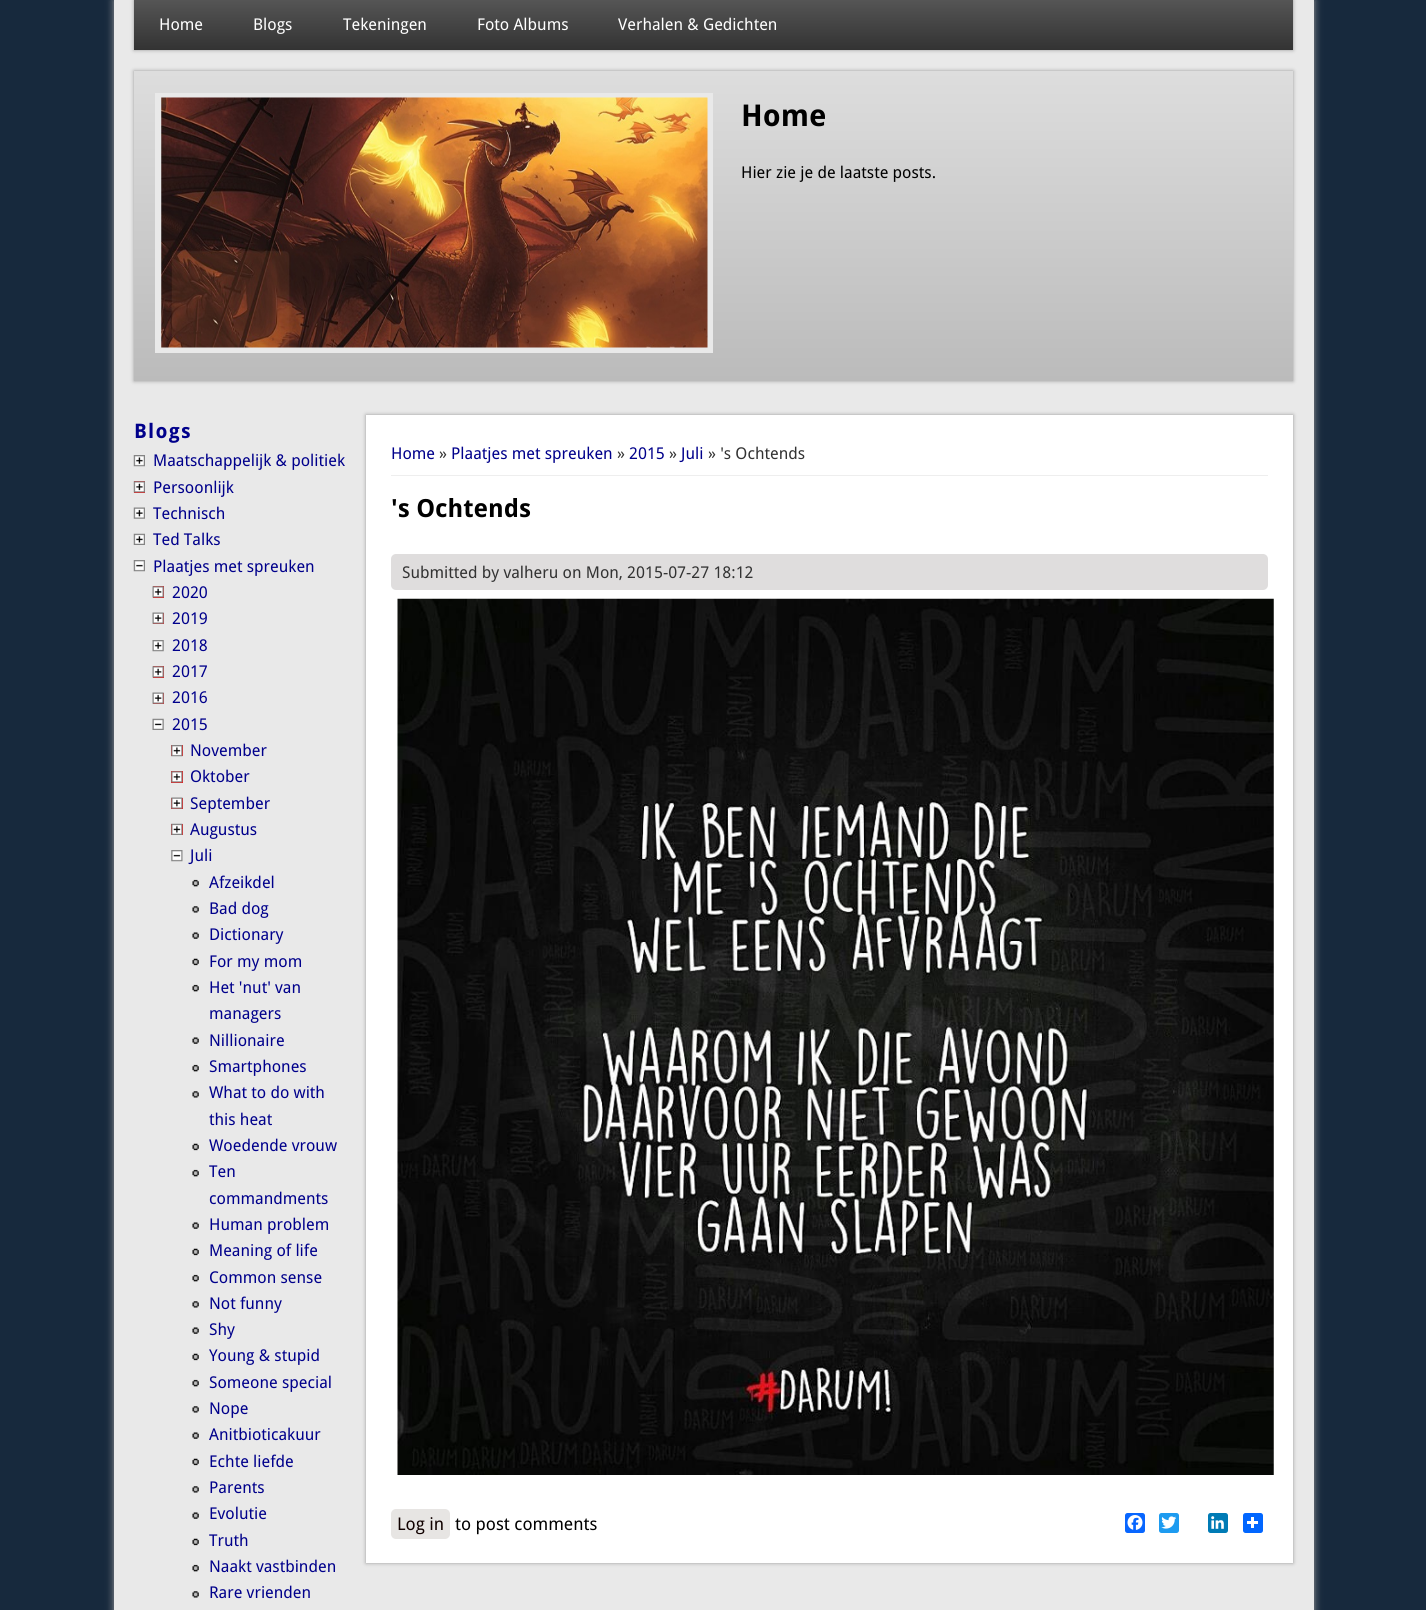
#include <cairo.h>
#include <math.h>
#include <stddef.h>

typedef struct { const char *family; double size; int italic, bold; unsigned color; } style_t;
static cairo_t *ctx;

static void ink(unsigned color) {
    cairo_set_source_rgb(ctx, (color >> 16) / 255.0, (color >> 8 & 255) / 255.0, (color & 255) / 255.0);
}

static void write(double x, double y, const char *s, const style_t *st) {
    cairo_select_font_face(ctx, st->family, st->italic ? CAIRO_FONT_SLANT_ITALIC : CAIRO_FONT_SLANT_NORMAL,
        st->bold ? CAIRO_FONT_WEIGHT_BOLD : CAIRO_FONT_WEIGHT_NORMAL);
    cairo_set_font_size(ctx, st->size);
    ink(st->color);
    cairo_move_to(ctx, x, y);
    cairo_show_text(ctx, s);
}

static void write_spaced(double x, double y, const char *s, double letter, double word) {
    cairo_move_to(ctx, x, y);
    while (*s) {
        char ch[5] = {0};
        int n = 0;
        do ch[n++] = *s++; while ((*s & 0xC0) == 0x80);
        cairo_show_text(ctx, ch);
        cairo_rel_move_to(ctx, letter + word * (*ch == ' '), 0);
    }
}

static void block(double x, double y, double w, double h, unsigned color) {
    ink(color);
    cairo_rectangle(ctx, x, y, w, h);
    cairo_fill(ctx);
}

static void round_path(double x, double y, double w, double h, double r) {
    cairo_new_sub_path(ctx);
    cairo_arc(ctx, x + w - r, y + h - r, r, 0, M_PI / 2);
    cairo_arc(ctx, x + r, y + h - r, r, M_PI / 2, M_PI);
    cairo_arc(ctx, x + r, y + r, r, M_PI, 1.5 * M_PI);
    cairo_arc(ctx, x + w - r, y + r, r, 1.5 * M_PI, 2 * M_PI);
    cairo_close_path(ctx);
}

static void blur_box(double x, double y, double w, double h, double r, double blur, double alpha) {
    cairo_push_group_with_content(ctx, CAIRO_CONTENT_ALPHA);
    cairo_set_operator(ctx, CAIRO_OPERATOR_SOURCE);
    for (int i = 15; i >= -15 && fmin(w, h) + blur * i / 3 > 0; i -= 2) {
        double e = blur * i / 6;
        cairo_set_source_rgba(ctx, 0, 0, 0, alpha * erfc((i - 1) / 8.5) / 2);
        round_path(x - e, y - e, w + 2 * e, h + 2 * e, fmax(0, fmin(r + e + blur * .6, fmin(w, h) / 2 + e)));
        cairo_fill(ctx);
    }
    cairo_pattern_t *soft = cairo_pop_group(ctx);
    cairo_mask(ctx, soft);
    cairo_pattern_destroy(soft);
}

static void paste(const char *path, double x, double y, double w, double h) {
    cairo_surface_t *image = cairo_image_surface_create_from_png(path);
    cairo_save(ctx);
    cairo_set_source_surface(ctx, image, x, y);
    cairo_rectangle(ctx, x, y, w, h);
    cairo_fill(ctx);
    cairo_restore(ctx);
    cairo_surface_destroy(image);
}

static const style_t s1 = {"Droid Sans", 16.25, 0, 0, 0xffffff};
static const style_t s2 = {"Droid Sans", 30, 0, 1, 0x000000};
static const style_t s3 = {"Droid Sans", 16.25, 0, 0, 0x000000};
static const style_t s4 = {"Droid Sans", 16.25, 0, 0, 0x00008b};
static const style_t s5 = {"Droid Sans", 16.25, 0, 0, 0x333333};
static const style_t s6 = {"Droid Sans", 25, 0, 1, 0x000000};
static const style_t s7 = {"Droid Sans", 17.5, 0, 0, 0x100100};
static const style_t s8 = {"Droid Sans", 17.5, 0, 0, 0x000000};

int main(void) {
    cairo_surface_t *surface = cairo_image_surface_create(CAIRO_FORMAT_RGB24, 1426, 1610);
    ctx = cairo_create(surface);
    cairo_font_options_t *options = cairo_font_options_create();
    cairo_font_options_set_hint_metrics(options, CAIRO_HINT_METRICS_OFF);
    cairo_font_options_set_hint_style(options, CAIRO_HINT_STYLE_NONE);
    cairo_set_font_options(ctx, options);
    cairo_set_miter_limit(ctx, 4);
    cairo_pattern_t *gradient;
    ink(0x17293d);
    cairo_paint(ctx);
    ink(0x999999);
    blur_box(114, 0, 1200, 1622, 0, 4, 1);
    block(114, 0, 1200, 1610, 0xe9e9e9);
    ink(0x999999);
    blur_box(134, 0, 1159, 50, 0, 2, 1);
    gradient = cairo_pattern_create_linear(713, 0, 713, 100);
    cairo_pattern_add_color_stop_rgba(gradient, 0, 0.333, 0.333, 0.333, 1);
    cairo_pattern_add_color_stop_rgba(gradient, 0.5, 0.2, 0.2, 0.2, 1);
    cairo_pattern_add_color_stop_rgba(gradient, 0.5, 0.333, 0.333, 0.333, 1);
    cairo_pattern_add_color_stop_rgba(gradient, 1, 0.2, 0.2, 0.2, 1);
    cairo_set_source(ctx, gradient);
    cairo_pattern_destroy(gradient);
    cairo_rectangle(ctx, 134, 0, 1159, 50);
    cairo_fill(ctx);
    write(159, 30, "Home", &s1);
    write(253, 30, "Blogs", &s1);
    write(343, 30, "Tekeningen", &s1);
    write(477, 30, "Foto Albums", &s1);
    write(618, 30, "Verhalen & Gedichten", &s1);
    ink(0x999999);
    blur_box(134, 71, 1159, 310, 0, 2, 1);
    gradient = cairo_pattern_create_linear(713, 71, 713, 381);
    cairo_pattern_add_color_stop_rgba(gradient, 0, 0.867, 0.867, 0.867, 1);
    cairo_pattern_add_color_stop_rgba(gradient, 1, 0.733, 0.733, 0.733, 1);
    cairo_set_source(ctx, gradient);
    cairo_pattern_destroy(gradient);
    cairo_rectangle(ctx, 134, 71, 1159, 310);
    cairo_fill(ctx);
    block(155, 93, 558, 260, 0xe9e9e9);
    paste("pic1.png", 161, 97, 547, 251);
    write(741, 126, "Home", &s2);
    write(741, 178, "Hier zie je de laatste posts.", &s3);
    cairo_select_font_face(ctx, "Droid Sans", CAIRO_FONT_SLANT_NORMAL, CAIRO_FONT_WEIGHT_BOLD);
    cairo_set_font_size(ctx, 20);
    ink(0x00008b);
    write_spaced(134, 438, "Blogs", 1.25, 0);
    paste("pic2.png", 133, 455, 12, 12);
    write(153, 466, "Maatschappelijk & politiek", &s4);
    block(134, 481, 11, 12, 0xff0000);
    paste("pic3.png", 133, 481, 12, 12);
    write(153, 493, "Persoonlijk", &s4);
    paste("pic4.png", 133, 507, 12, 12);
    write(153, 519, "Technisch", &s4);
    paste("pic5.png", 133, 533, 12, 12);
    write(153, 545, "Ted Talks", &s4);
    paste("pic6.png", 133, 560, 12, 12);
    write(153, 572, "Plaatjes met spreuken", &s4);
    block(153, 586, 11, 12, 0xff0000);
    paste("pic7.png", 152, 586, 12, 12);
    write(172, 598, "2020", &s4);
    block(153, 613, 11, 11, 0xff0000);
    paste("pic8.png", 152, 612, 12, 12);
    write(172, 624, "2019", &s4);
    paste("pic9.png", 152, 640, 12, 12);
    write(172, 651, "2018", &s4);
    block(153, 666, 11, 12, 0xff0000);
    paste("pic10.png", 152, 666, 12, 12);
    write(172, 677, "2017", &s4);
    block(153, 693, 11, 11, 0xff0000);
    paste("pic8.png", 152, 692, 12, 12);
    write(172, 703, "2016", &s4);
    paste("pic11.png", 152, 718, 12, 12);
    write(172, 730, "2015", &s4);
    block(171, 745, 12, 11, 0xff0000);
    paste("pic12.png", 171, 745, 12, 12);
    write(190, 756, "November", &s4);
    block(171, 771, 12, 12, 0xff0000);
    paste("pic13.png", 171, 771, 12, 12);
    write(190, 782, "Oktober", &s4);
    block(171, 798, 12, 11, 0xff0000);
    paste("pic14.png", 171, 797, 12, 12);
    write(190, 809, "September", &s4);
    block(171, 824, 12, 11, 0xff0000);
    paste("pic15.png", 171, 823, 12, 12);
    write(190, 835, "Augustus", &s4);
    paste("pic16.png", 171, 850, 12, 12);
    write(190, 861, "Juli", &s4);
    paste("pic17.png", 192, 879, 7, 8);
    write(209, 888, "Afzeikdel", &s4);
    paste("pic18.png", 192, 906, 7, 7);
    write(209, 914, "Bad dog", &s4);
    paste("pic19.png", 192, 932, 7, 7);
    write(209, 940, "Dictionary", &s4);
    paste("pic20.png", 192, 958, 7, 8);
    write(209, 967, "For my mom", &s4);
    paste("pic17.png", 192, 984, 7, 8);
    write(209, 993, "Het 'nut' van", &s4);
    write(209, 1019, "managers", &s4);
    paste("pic19.png", 192, 1037, 7, 7);
    write(209, 1046, "Nillionaire", &s4);
    paste("pic17.png", 192, 1064, 7, 8);
    write(209, 1072, "Smartphones", &s4);
    paste("pic18.png", 192, 1091, 7, 7);
    write(209, 1098, "What to do with", &s4);
    write(209, 1125, "this heat", &s4);
    paste("pic20.png", 192, 1143, 7, 8);
    write(209, 1151, "Woedende vrouw", &s4);
    paste("pic17.png", 192, 1169, 7, 8);
    write(209, 1177, "Ten", &s4);
    write(209, 1204, "commandments", &s4);
    paste("pic19.png", 192, 1222, 7, 7);
    write(209, 1230, "Human problem", &s4);
    paste("pic20.png", 192, 1248, 7, 8);
    write(209, 1256, "Meaning of life", &s4);
    paste("pic17.png", 192, 1274, 7, 8);
    write(209, 1283, "Common sense", &s4);
    paste("pic18.png", 192, 1301, 7, 7);
    write(209, 1309, "Not funny", &s4);
    paste("pic19.png", 192, 1327, 7, 7);
    write(209, 1335, "Shy", &s4);
    paste("pic20.png", 192, 1353, 7, 8);
    write(209, 1361, "Young & stupid", &s4);
    paste("pic17.png", 192, 1379, 7, 8);
    write(209, 1388, "Someone special", &s4);
    paste("pic18.png", 192, 1406, 7, 7);
    write(209, 1414, "Nope", &s4);
    paste("pic19.png", 192, 1432, 7, 7);
    write(209, 1440, "Anitbioticakuur", &s4);
    paste("pic20.png", 192, 1458, 7, 8);
    write(209, 1467, "Echte liefde", &s4);
    paste("pic18.png", 192, 1486, 7, 7);
    write(209, 1493, "Parents", &s4);
    paste("pic19.png", 192, 1512, 7, 7);
    write(209, 1519, "Evolutie", &s4);
    paste("pic20.png", 192, 1538, 7, 8);
    write(209, 1546, "Truth", &s4);
    paste("pic21.png", 192, 1564, 7, 8);
    write(209, 1572, "Naakt vastbinden", &s4);
    paste("pic18.png", 192, 1591, 7, 7);
    write(209, 1598, "Rare vrienden", &s4);
    ink(0x999999);
    blur_box(366, 415, 927, 1148, 0, 2, 1);
    block(366, 415, 927, 1148, 0xffffff);
    block(391, 475, 877, 1, 0xeeeeee);
    write(391, 459, "Home", &s4);
    write(439, 459, "»", &s5);
    write(451, 459, "Plaatjes met spreuken", &s4);
    write(617, 459, "»", &s5);
    write(629, 459, "2015", &s4);
    write(669, 459, "»", &s5);
    write(681, 459, "Juli", &s4);
    write(708, 459, "» 's Ochtends", &s5);
    write(391, 517, "'s Ochtends", &s6);
    ink(0xdfdddd);
    round_path(391, 554, 877, 36, 5);
    cairo_fill(ctx);
    write(402, 578, "Submitted by valheru on Mon, 2015-07-27 18:12", &s5);
    paste("pic22.png", 397, 598, 877, 877);
    ink(0x0866ff);
    round_path(1125, 1513, 20, 20, 2.5);
    cairo_fill(ctx);
    paste("pic23.png", 1127, 1515, 16, 15);
    ink(0x1d9bf0);
    round_path(1159, 1513, 20, 20, 2.5);
    cairo_fill(ctx);
    paste("pic24.png", 1161, 1516, 15, 13);
    ink(0x007bb5);
    round_path(1208, 1513, 20, 20, 2.5);
    cairo_fill(ctx);
    paste("pic25.png", 1211, 1516, 13, 13);
    ink(0x0166ff);
    round_path(1243, 1513, 20, 20, 2.5);
    cairo_fill(ctx);
    block(1251, 1517, 3, 11, 0xffffff);
    block(1247, 1521, 11, 3, 0xffffff);
    ink(0xe7e5e3);
    round_path(391, 1509, 59, 30, 5);
    cairo_fill(ctx);
    write(397, 1530, "Log in", &s7);
    write(455, 1530, "to post comments", &s8);
    cairo_surface_write_to_png(surface, "screenshot.png");
    cairo_font_options_destroy(options);
    cairo_destroy(ctx);
    cairo_surface_destroy(surface);
    return 0;
}
